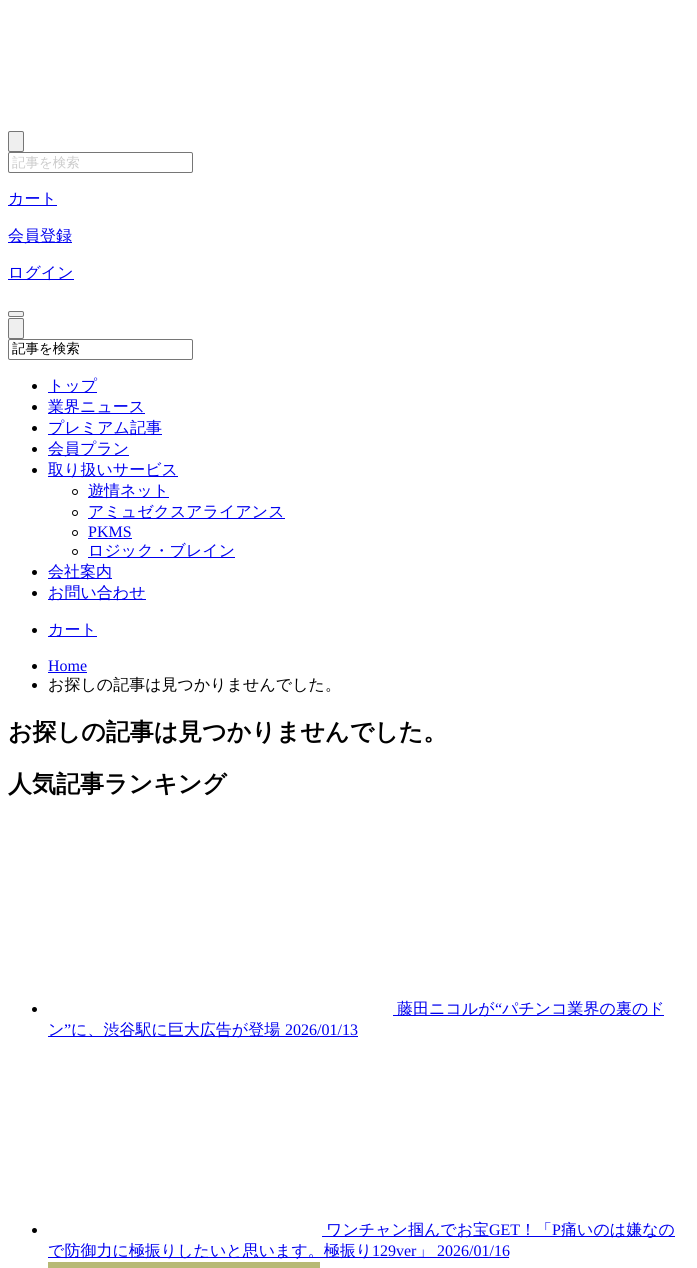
#include <cairo.h>
#include <math.h>
#include <stddef.h>

typedef struct { const char *family; double size; int italic, bold; unsigned color; } style_t;
static cairo_t *ctx;

static void ink(unsigned color) {
    cairo_set_source_rgb(ctx, (color >> 16) / 255.0, (color >> 8 & 255) / 255.0, (color & 255) / 255.0);
}

static void write(double x, double y, const char *s, const style_t *st) {
    cairo_select_font_face(ctx, st->family, st->italic ? CAIRO_FONT_SLANT_ITALIC : CAIRO_FONT_SLANT_NORMAL,
        st->bold ? CAIRO_FONT_WEIGHT_BOLD : CAIRO_FONT_WEIGHT_NORMAL);
    cairo_set_font_size(ctx, st->size);
    ink(st->color);
    cairo_move_to(ctx, x, y);
    cairo_show_text(ctx, s);
}

static void block(double x, double y, double w, double h, unsigned color) {
    ink(color);
    cairo_rectangle(ctx, x, y, w, h);
    cairo_fill(ctx);
}

static void round_path(double x, double y, double w, double h, double r) {
    cairo_new_sub_path(ctx);
    cairo_arc(ctx, x + w - r, y + h - r, r, 0, M_PI / 2);
    cairo_arc(ctx, x + r, y + h - r, r, M_PI / 2, M_PI);
    cairo_arc(ctx, x + r, y + r, r, M_PI, 1.5 * M_PI);
    cairo_arc(ctx, x + w - r, y + r, r, 1.5 * M_PI, 2 * M_PI);
    cairo_close_path(ctx);
}

static const style_t s1 = {"WenQuanYi Zen Hei Medium", 13.5, 0, 0, 0xcccccc};
static const style_t s2 = {"WenQuanYi Zen Hei Medium", 16, 0, 0, 0x0000ee};
static const style_t s3 = {"WenQuanYi Zen Hei Medium", 13.5, 0, 0, 0x000000};
static const style_t s4 = {"Liberation Serif", 16, 0, 0, 0x0000ee};
static const style_t s5 = {"WenQuanYi Zen Hei Medium", 16, 0, 0, 0x000000};
static const style_t s6 = {"WenQuanYi Zen Hei", 24, 0, 1, 0x000000};

int main(void) {
    cairo_surface_t *surface = cairo_image_surface_create(CAIRO_FORMAT_RGB24, 697, 1268);
    ctx = cairo_create(surface);
    cairo_font_options_t *options = cairo_font_options_create();
    cairo_font_options_set_hint_metrics(options, CAIRO_HINT_METRICS_OFF);
    cairo_font_options_set_hint_style(options, CAIRO_HINT_STYLE_NONE);
    cairo_set_font_options(ctx, options);
    cairo_set_miter_limit(ctx, 4);
    ink(0xffffff);
    cairo_paint(ctx);
    ink(0xefefef);
    round_path(8.5, 131.5, 15, 20, 1.5);
    cairo_fill_preserve(ctx);
    ink(0x767676);
    cairo_set_line_width(ctx, 1);
    cairo_stroke(ctx);
    round_path(8.5, 152.5, 184, 20, 1.5);
    cairo_stroke(ctx);
    write(12, 167, "記事を検索", &s1);
    block(8, 205, 49, 1, 0x0000ee);
    write(8, 204, "カート", &s2);
    block(8, 242, 64, 1, 0x0000ee);
    write(8, 241, "会員登録", &s2);
    block(8, 279, 66, 1, 0x0000ee);
    write(8, 278, "ログイン", &s2);
    ink(0xefefef);
    round_path(8.5, 311.5, 15, 5, 1.5);
    cairo_fill_preserve(ctx);
    ink(0x767676);
    cairo_stroke(ctx);
    ink(0xefefef);
    round_path(8.5, 318.5, 15, 20, 1.5);
    cairo_fill_preserve(ctx);
    ink(0x767676);
    cairo_stroke(ctx);
    round_path(8.5, 339.5, 184, 20, 1.5);
    cairo_stroke(ctx);
    write(12, 353, "記事を検索", &s3);
    cairo_new_path(ctx);
    cairo_arc(ctx, 34.5, 386.5, 2.5, 0, 2 * M_PI);
    cairo_fill(ctx);
    block(48, 392, 49, 1, 0x0000ee);
    write(48, 391, "トップ", &s2);
    ink(0x000000);
    cairo_new_path(ctx);
    cairo_arc(ctx, 34.5, 407.5, 2.5, 0, 2 * M_PI);
    cairo_fill(ctx);
    block(48, 413, 97, 1, 0x0000ee);
    write(48, 412, "業界ニュース", &s2);
    ink(0x000000);
    cairo_new_path(ctx);
    cairo_arc(ctx, 34.5, 428.5, 2.5, 0, 2 * M_PI);
    cairo_fill(ctx);
    block(48, 434, 114, 1, 0x0000ee);
    write(48, 433, "プレミアム記事", &s2);
    ink(0x000000);
    cairo_new_path(ctx);
    cairo_arc(ctx, 34.5, 449.5, 2.5, 0, 2 * M_PI);
    cairo_fill(ctx);
    block(48, 455, 81, 1, 0x0000ee);
    write(48, 454, "会員プラン", &s2);
    ink(0x000000);
    cairo_new_path(ctx);
    cairo_arc(ctx, 34.5, 470.5, 2.5, 0, 2 * M_PI);
    cairo_fill(ctx);
    block(48, 476, 130, 1, 0x0000ee);
    write(48, 475, "取り扱いサービス", &s2);
    cairo_new_path(ctx);
    cairo_arc(ctx, 75, 492, 2.5, 0, 2 * M_PI);
    ink(0x000000);
    cairo_stroke(ctx);
    block(88, 497, 81, 1, 0x0000ee);
    write(88, 496, "遊情ネット", &s2);
    cairo_new_path(ctx);
    cairo_arc(ctx, 75, 513, 2.5, 0, 2 * M_PI);
    ink(0x000000);
    cairo_stroke(ctx);
    block(88, 518, 197, 1, 0x0000ee);
    write(88, 517, "アミュゼクスアライアンス", &s2);
    cairo_new_path(ctx);
    cairo_arc(ctx, 75, 533, 2.5, 0, 2 * M_PI);
    ink(0x000000);
    cairo_stroke(ctx);
    write(88, 537, "PKMS", &s4);
    block(88, 538, 44, 1, 0x0000ee);
    cairo_new_path(ctx);
    cairo_arc(ctx, 75, 552, 2.5, 0, 2 * M_PI);
    ink(0x000000);
    cairo_stroke(ctx);
    block(88, 557, 147, 1, 0x0000ee);
    write(88, 556, "ロジック・ブレイン", &s2);
    ink(0x000000);
    cairo_new_path(ctx);
    cairo_arc(ctx, 34.5, 572.5, 2.5, 0, 2 * M_PI);
    cairo_fill(ctx);
    block(48, 578, 64, 1, 0x0000ee);
    write(48, 577, "会社案内", &s2);
    ink(0x000000);
    cairo_new_path(ctx);
    cairo_arc(ctx, 34.5, 593.5, 2.5, 0, 2 * M_PI);
    cairo_fill(ctx);
    block(48, 599, 98, 1, 0x0000ee);
    write(48, 598, "お問い合わせ", &s2);
    ink(0x000000);
    cairo_new_path(ctx);
    cairo_arc(ctx, 34.5, 630.5, 2.5, 0, 2 * M_PI);
    cairo_fill(ctx);
    block(48, 636, 49, 1, 0x0000ee);
    write(48, 635, "カート", &s2);
    ink(0x000000);
    cairo_new_path(ctx);
    cairo_arc(ctx, 34.5, 666.5, 2.5, 0, 2 * M_PI);
    cairo_fill(ctx);
    write(48, 671, "Home", &s4);
    block(48, 672, 39, 1, 0x0000ee);
    ink(0x000000);
    cairo_new_path(ctx);
    cairo_arc(ctx, 34.5, 685.5, 2.5, 0, 2 * M_PI);
    cairo_fill(ctx);
    write(48, 690, "お探しの記事は見つかりませんでした。", &s5);
    write(8, 740, "お探しの記事は見つかりませんでした。", &s6);
    write(8, 792, "人気記事ランキング", &s6);
    block(393, 1015, 271, 1, 0x0000ee);
    write(397, 1014, "藤田ニコルが", &s2);
    write(495, 1014, "“", &s4);
    write(502, 1014, "パチンコ業界の裏のド", &s2);
    ink(0x000000);
    cairo_new_path(ctx);
    cairo_arc(ctx, 34.5, 1009.5, 2.5, 0, 2 * M_PI);
    cairo_fill(ctx);
    block(48, 1036, 310, 1, 0x0000ee);
    write(48, 1035, "ン", &s2);
    write(64, 1035, "”", &s4);
    write(71, 1035, "に、渋谷駅に巨大広告が登場", &s2);
    write(285, 1035, "2026/01/13", &s4);
    ink(0x000000);
    cairo_new_path(ctx);
    cairo_arc(ctx, 34.5, 1230.5, 2.5, 0, 2 * M_PI);
    cairo_fill(ctx);
    block(322, 1236, 353, 1, 0x0000ee);
    write(326, 1235, "ワンチャン掴んでお宝", &s2);
    write(489, 1235, "GET", &s4);
    write(520, 1235, "！「", &s2);
    write(552, 1235, "P", &s4);
    write(561, 1235, "痛いのは嫌なの", &s2);
    block(48, 1257, 461, 1, 0x0000ee);
    write(48, 1256, "で防御力に極振りしたいと思います。極振り", &s2);
    write(372, 1256, "129ver", &s4);
    write(417, 1256, "」", &s2);
    write(437, 1256, "2026/01/16", &s4);
    block(48, 1262, 272, 6, 0xb7b975);
    cairo_surface_write_to_png(surface, "screenshot.png");
    cairo_font_options_destroy(options);
    cairo_destroy(ctx);
    cairo_surface_destroy(surface);
    return 0;
}
